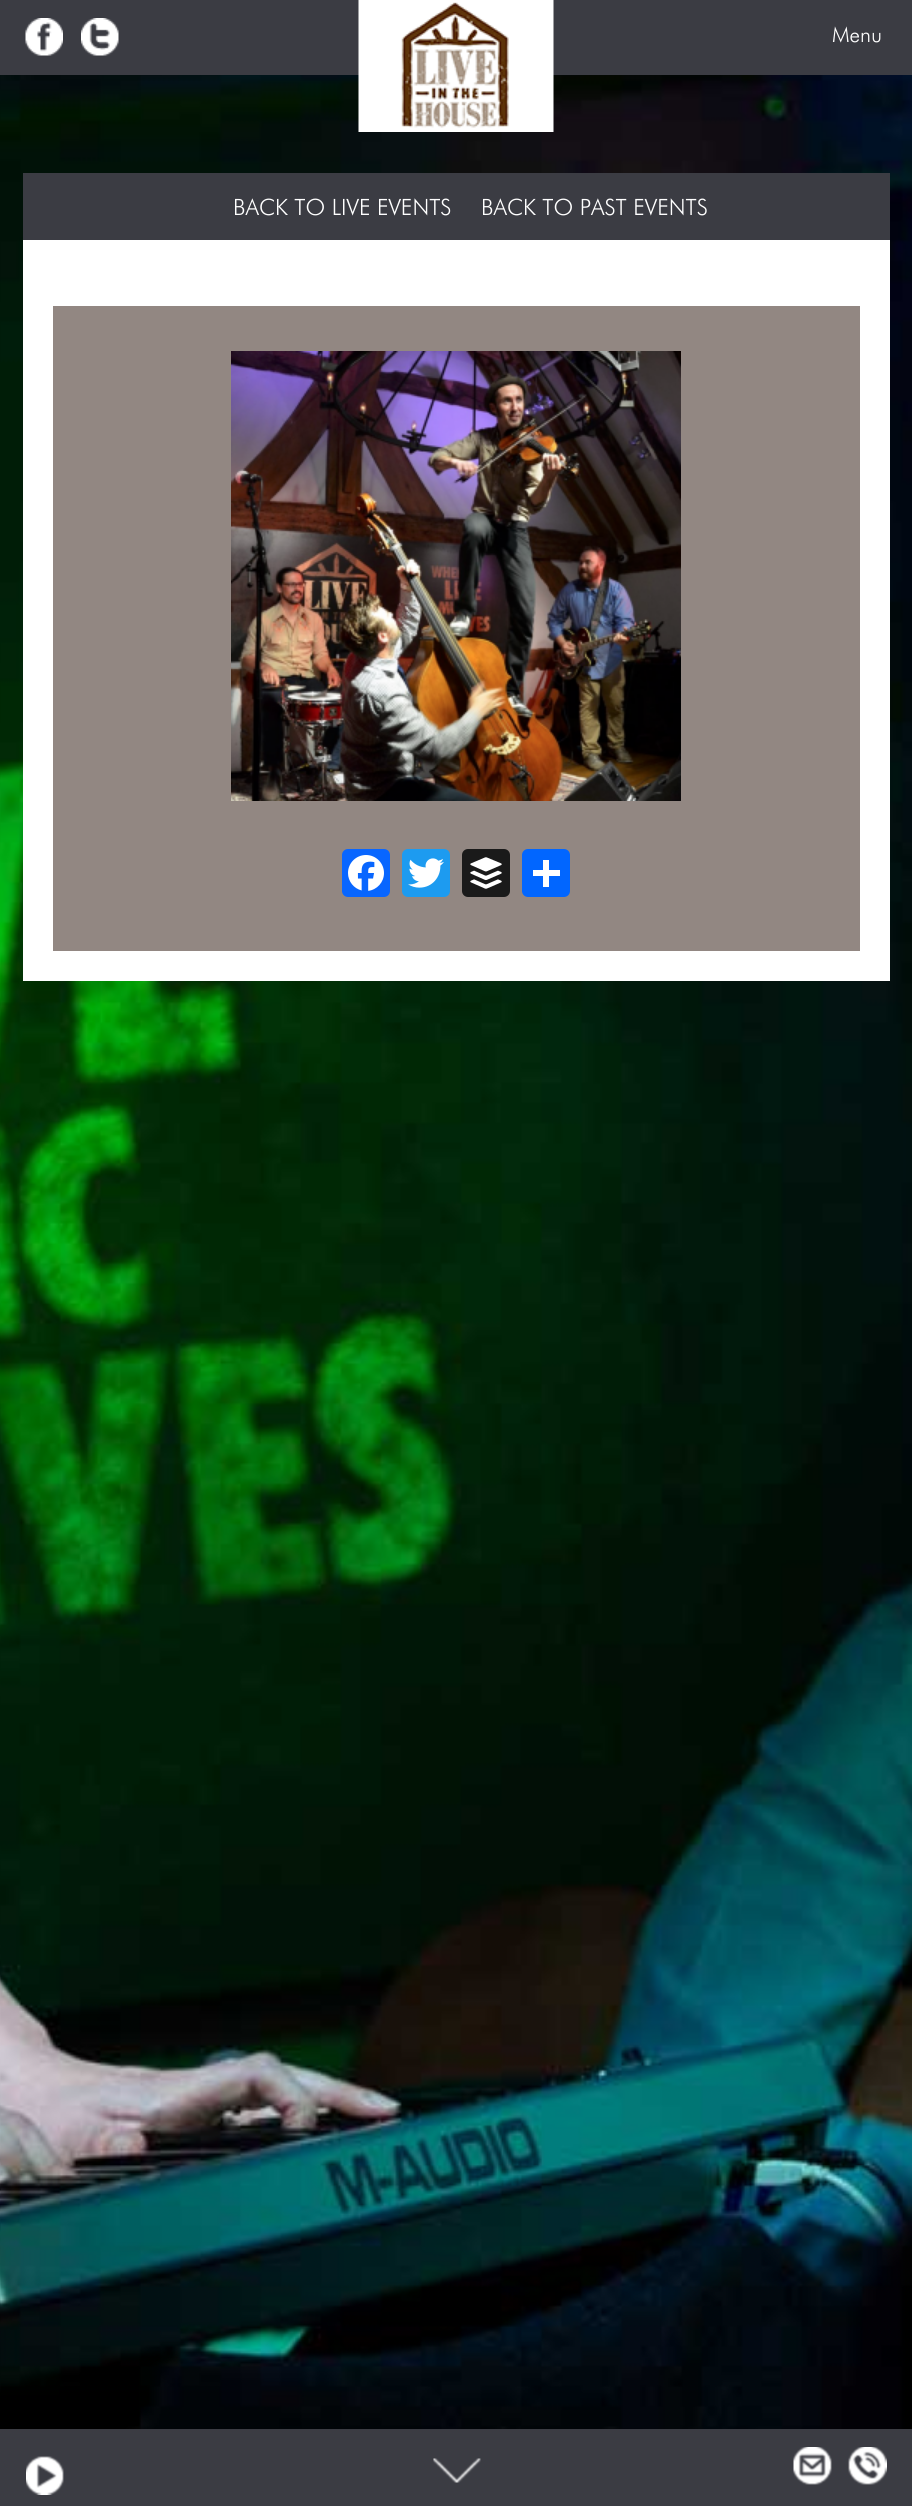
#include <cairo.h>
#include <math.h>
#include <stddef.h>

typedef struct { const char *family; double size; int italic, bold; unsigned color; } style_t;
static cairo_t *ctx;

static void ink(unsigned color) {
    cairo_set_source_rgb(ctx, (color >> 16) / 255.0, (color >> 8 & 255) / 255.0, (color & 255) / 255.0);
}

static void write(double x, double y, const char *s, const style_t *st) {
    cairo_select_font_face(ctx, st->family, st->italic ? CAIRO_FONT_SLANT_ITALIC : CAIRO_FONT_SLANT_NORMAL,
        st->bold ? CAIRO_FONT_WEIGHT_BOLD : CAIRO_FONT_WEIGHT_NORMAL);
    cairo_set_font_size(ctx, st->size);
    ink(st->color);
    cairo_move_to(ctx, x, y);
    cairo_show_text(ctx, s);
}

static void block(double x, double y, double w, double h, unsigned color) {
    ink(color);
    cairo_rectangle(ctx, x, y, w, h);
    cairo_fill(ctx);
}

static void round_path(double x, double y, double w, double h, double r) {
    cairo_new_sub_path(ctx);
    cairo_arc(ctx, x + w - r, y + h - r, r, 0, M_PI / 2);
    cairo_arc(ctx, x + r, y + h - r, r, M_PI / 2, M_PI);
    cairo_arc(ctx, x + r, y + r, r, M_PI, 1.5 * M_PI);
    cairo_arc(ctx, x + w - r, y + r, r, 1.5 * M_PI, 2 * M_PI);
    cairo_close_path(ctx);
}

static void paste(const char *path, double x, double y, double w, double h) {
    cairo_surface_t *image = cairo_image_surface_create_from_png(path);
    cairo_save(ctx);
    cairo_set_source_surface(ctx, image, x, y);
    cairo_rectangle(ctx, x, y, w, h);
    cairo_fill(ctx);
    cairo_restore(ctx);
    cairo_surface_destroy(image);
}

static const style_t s1 = {"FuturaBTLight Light", 21, 0, 0, 0xffffff};
static const style_t s2 = {"FuturaBTLight Light", 22.5, 0, 0, 0xffffff};

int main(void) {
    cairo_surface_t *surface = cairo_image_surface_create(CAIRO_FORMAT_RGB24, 912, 2506);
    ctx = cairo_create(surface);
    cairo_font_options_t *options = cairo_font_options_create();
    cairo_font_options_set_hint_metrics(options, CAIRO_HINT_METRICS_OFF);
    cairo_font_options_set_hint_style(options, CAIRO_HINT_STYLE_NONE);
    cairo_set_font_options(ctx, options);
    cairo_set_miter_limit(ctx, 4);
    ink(0xffffff);
    cairo_paint(ctx);
    block(0, 0, 912, 75, 0x3b3c43);
    paste("pic1.png", 25, 18, 38, 38);
    paste("pic2.png", 81, 18, 38, 38);
    paste("pic4.png", 0, 75, 912, 2354);
    paste("pic3.png", 358, 0, 196, 132);
    write(832, 42, "Menu", &s1);
    block(23, 173, 867, 67, 0x3b3c43);
    write(233, 215, "BACK TO LIVE EVENTS", &s2);
    write(481, 215, "BACK TO PAST EVENTS", &s2);
    block(23, 240, 867, 741, 0xffffff);
    block(53, 306, 807, 645, 0x928782);
    paste("pic5.png", 231, 351, 450, 450);
    ink(0x0866ff);
    round_path(342, 849, 48, 48, 6);
    cairo_fill(ctx);
    paste("pic6.png", 348, 855, 36, 36);
    ink(0x1d9bf0);
    round_path(402, 849, 48, 48, 6);
    cairo_fill(ctx);
    paste("pic7.png", 408, 858, 36, 30);
    ink(0x1a1a1a);
    round_path(462, 849, 48, 48, 6);
    cairo_fill(ctx);
    paste("pic8.png", 470, 857, 32, 32);
    ink(0x0166ff);
    round_path(522, 849, 48, 48, 6);
    cairo_fill(ctx);
    block(543, 860, 6, 27, 0xffffff);
    block(533, 870, 27, 6, 0xffffff);
    block(0, 2429, 912, 77, 0x3b3c43);
    paste("pic9.png", 26, 2456, 38, 39);
    paste("pic10.png", 433, 2458, 48, 25);
    paste("pic11.png", 793, 2447, 39, 38);
    paste("pic12.png", 848, 2447, 39, 38);
    cairo_surface_write_to_png(surface, "screenshot.png");
    cairo_font_options_destroy(options);
    cairo_destroy(ctx);
    cairo_surface_destroy(surface);
    return 0;
}
